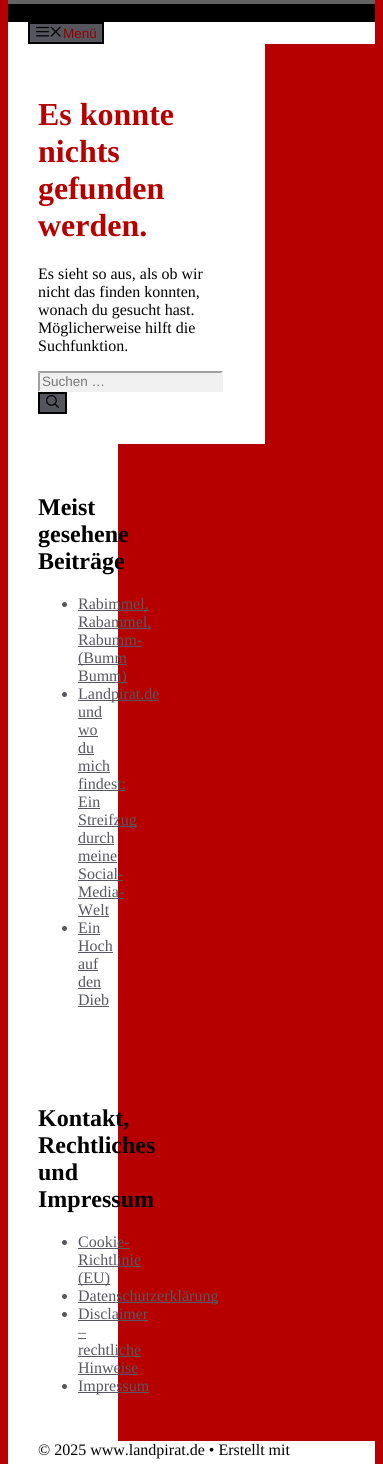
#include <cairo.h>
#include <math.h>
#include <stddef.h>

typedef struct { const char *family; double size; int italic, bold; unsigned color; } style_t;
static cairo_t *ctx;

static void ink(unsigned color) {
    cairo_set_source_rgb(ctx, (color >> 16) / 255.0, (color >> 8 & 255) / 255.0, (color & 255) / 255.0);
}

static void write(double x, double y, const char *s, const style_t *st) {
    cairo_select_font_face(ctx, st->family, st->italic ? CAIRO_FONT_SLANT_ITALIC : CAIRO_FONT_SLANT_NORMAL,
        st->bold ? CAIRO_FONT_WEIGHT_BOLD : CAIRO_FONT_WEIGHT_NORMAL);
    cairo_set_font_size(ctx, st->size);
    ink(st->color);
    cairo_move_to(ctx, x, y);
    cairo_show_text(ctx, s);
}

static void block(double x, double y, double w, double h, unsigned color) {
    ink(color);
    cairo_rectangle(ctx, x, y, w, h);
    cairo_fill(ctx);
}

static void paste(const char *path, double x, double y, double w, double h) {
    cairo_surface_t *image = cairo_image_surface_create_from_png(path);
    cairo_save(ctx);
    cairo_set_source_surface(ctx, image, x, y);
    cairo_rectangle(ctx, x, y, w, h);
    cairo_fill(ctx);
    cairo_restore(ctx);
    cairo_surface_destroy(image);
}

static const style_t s1 = {"Liberation Sans", 13.5, 0, 0, 0x940000};
static const style_t s2 = {"Liberation Serif", 32, 0, 1, 0xb60000};
static const style_t s3 = {"Liberation Serif", 16, 0, 0, 0x000000};
static const style_t s4 = {"Liberation Sans", 13.5, 0, 0, 0x757575};
static const style_t s5 = {"Liberation Serif", 24, 0, 1, 0x000000};
static const style_t s6 = {"Liberation Serif", 16, 0, 0, 0x575760};

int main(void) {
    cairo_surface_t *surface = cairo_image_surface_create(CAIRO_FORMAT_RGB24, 383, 1464);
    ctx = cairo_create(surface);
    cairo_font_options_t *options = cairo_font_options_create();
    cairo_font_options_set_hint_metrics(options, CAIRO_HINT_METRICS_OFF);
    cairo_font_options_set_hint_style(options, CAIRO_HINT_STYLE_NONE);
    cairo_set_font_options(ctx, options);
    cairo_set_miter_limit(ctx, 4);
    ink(0xb60000);
    cairo_paint(ctx);
    block(8, 0, 367, 4, 0x636363);
    block(8, 4, 367, 18, 0x000000);
    block(8, 22, 367, 22, 0xffffff);
    ink(0x55555e);
    cairo_rectangle(ctx, 29, 23, 74, 20);
    cairo_fill_preserve(ctx);
    ink(0x000000);
    cairo_stroke(ctx);
    paste("pic1.png", 36, 26, 13, 11);
    paste("pic2.png", 50, 26, 11, 11);
    write(63, 38, "Menü", &s1);
    block(8, 44, 257, 400, 0xffffff);
    write(38, 125, "Es konnte", &s2);
    write(38, 162, "nichts", &s2);
    write(38, 199, "gefunden", &s2);
    write(38, 236, "werden.", &s2);
    write(38, 279, "Es sieht so aus, als ob wir", &s3);
    write(38, 297, "nicht das finden konnten,", &s3);
    write(38, 315, "wonach du gesucht hast.", &s3);
    write(38, 333, "Möglicherweise hilft die", &s3);
    write(38, 351, "Suchfunktion.", &s3);
    block(38, 371, 185, 21, 0xf0f0f0);
    ink(0xa0a0a0);
    cairo_new_path(ctx);
    cairo_move_to(ctx, 38, 371);
    cairo_line_to(ctx, 223, 371);
    cairo_line_to(ctx, 221, 373);
    cairo_line_to(ctx, 40, 373);
    cairo_close_path(ctx);
    cairo_fill(ctx);
    ink(0xf0f0f0);
    cairo_new_path(ctx);
    cairo_move_to(ctx, 223, 371);
    cairo_line_to(ctx, 223, 392);
    cairo_line_to(ctx, 221, 390);
    cairo_line_to(ctx, 221, 373);
    cairo_close_path(ctx);
    cairo_fill(ctx);
    ink(0xa0a0a0);
    cairo_new_path(ctx);
    cairo_move_to(ctx, 38, 392);
    cairo_line_to(ctx, 38, 371);
    cairo_line_to(ctx, 40, 373);
    cairo_line_to(ctx, 40, 390);
    cairo_close_path(ctx);
    cairo_fill(ctx);
    write(42, 386, "Suchen …", &s4);
    ink(0x55555e);
    cairo_rectangle(ctx, 39, 393, 27, 20);
    cairo_fill_preserve(ctx);
    ink(0x000000);
    cairo_stroke(ctx);
    paste("pic3.png", 46, 395, 13, 13);
    block(8, 444, 110, 997, 0xffffff);
    write(38, 515, "Meist", &s5);
    write(38, 542, "gesehene", &s5);
    write(38, 569, "Beiträge", &s5);
    ink(0x575760);
    cairo_new_path(ctx);
    cairo_arc(ctx, 64.5, 604.5, 2.5, 0, 2 * M_PI);
    cairo_fill(ctx);
    block(78, 610, 71, 1, 0x575760);
    write(78, 609, "Rabimmel,", &s6);
    block(78, 628, 73, 1, 0x575760);
    write(78, 627, "Rabammel,", &s6);
    write(78, 645, "Rabumm-", &s6);
    block(78, 646, 64, 1, 0x575760);
    block(78, 664, 49, 1, 0x575760);
    write(78, 663, "(Bumm", &s6);
    block(78, 682, 49, 1, 0x575760);
    write(78, 681, "Bumm)", &s6);
    cairo_new_path(ctx);
    cairo_arc(ctx, 64.5, 694.5, 2.5, 0, 2 * M_PI);
    cairo_fill(ctx);
    block(78, 700, 81, 1, 0x575760);
    write(78, 699, "Landpirat.de", &s6);
    write(78, 717, "und", &s6);
    block(78, 718, 24, 1, 0x575760);
    write(78, 735, "wo", &s6);
    block(78, 736, 20, 1, 0x575760);
    write(78, 753, "du", &s6);
    block(78, 754, 16, 1, 0x575760);
    write(78, 771, "mich", &s6);
    block(78, 772, 32, 1, 0x575760);
    write(78, 789, "findest:", &s6);
    block(78, 790, 48, 1, 0x575760);
    write(78, 807, "Ein", &s6);
    block(78, 808, 22, 1, 0x575760);
    block(78, 826, 59, 1, 0x575760);
    write(78, 825, "Streifzug", &s6);
    write(78, 843, "durch", &s6);
    block(78, 844, 36, 1, 0x575760);
    write(78, 861, "meine", &s6);
    block(78, 862, 39, 1, 0x575760);
    write(78, 879, "Social-", &s6);
    block(78, 880, 45, 1, 0x575760);
    write(78, 897, "Media-", &s6);
    block(78, 898, 46, 1, 0x575760);
    write(78, 915, "Welt", &s6);
    block(78, 916, 31, 1, 0x575760);
    cairo_new_path(ctx);
    cairo_arc(ctx, 64.5, 928.5, 2.5, 0, 2 * M_PI);
    cairo_fill(ctx);
    write(78, 933, "Ein", &s6);
    block(78, 934, 22, 1, 0x575760);
    write(78, 951, "Hoch", &s6);
    block(78, 952, 35, 1, 0x575760);
    write(78, 969, "auf", &s6);
    block(78, 970, 20, 1, 0x575760);
    write(78, 987, "den", &s6);
    block(78, 988, 23, 1, 0x575760);
    write(78, 1005, "Dieb", &s6);
    block(78, 1006, 31, 1, 0x575760);
    write(38, 1126, "Kontakt,", &s5);
    write(38, 1153, "Rechtliches", &s5);
    write(38, 1180, "und", &s5);
    write(38, 1207, "Impressum", &s5);
    ink(0x575760);
    cairo_new_path(ctx);
    cairo_arc(ctx, 64.5, 1242.5, 2.5, 0, 2 * M_PI);
    cairo_fill(ctx);
    write(78, 1247, "Cookie-", &s6);
    block(78, 1248, 52, 1, 0x575760);
    write(78, 1265, "Richtlinie", &s6);
    block(78, 1266, 63, 1, 0x575760);
    block(78, 1284, 32, 1, 0x575760);
    write(78, 1283, "(EU)", &s6);
    cairo_new_path(ctx);
    cairo_arc(ctx, 64.5, 1296.5, 2.5, 0, 2 * M_PI);
    cairo_fill(ctx);
    block(78, 1302, 140, 1, 0x575760);
    write(78, 1301, "Datenschutzerklärung", &s6);
    cairo_new_path(ctx);
    cairo_arc(ctx, 64.5, 1314.5, 2.5, 0, 2 * M_PI);
    cairo_fill(ctx);
    write(78, 1319, "Disclaimer", &s6);
    block(78, 1320, 70, 1, 0x575760);
    write(78, 1337, "–", &s6);
    block(78, 1338, 8, 1, 0x575760);
    write(78, 1355, "rechtliche", &s6);
    block(78, 1356, 63, 1, 0x575760);
    write(78, 1373, "Hinweise", &s6);
    block(78, 1374, 60, 1, 0x575760);
    cairo_new_path(ctx);
    cairo_arc(ctx, 64.5, 1386.5, 2.5, 0, 2 * M_PI);
    cairo_fill(ctx);
    block(78, 1392, 71, 1, 0x575760);
    write(78, 1391, "Impressum", &s6);
    block(8, 1441, 367, 23, 0xffffff);
    write(38, 1455, "© 2025 www.landpirat.de • Erstellt mit", &s3);
    cairo_surface_write_to_png(surface, "screenshot.png");
    cairo_font_options_destroy(options);
    cairo_destroy(ctx);
    cairo_surface_destroy(surface);
    return 0;
}
